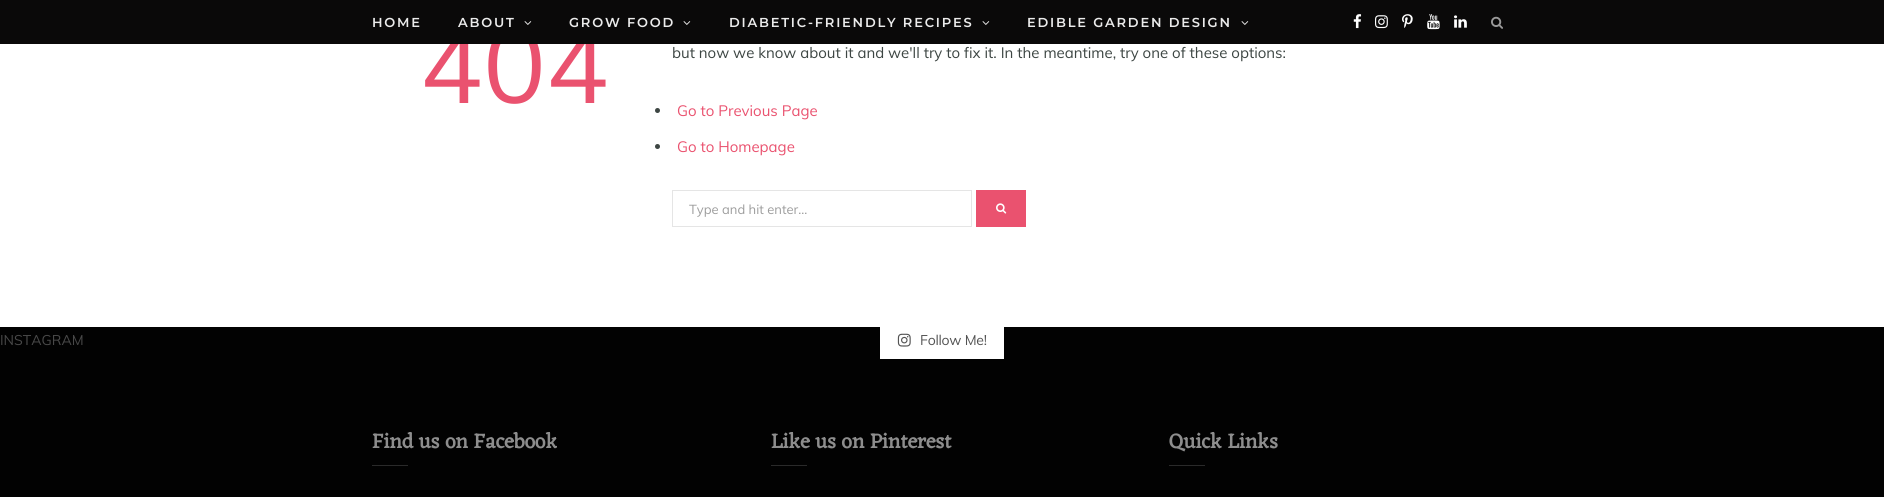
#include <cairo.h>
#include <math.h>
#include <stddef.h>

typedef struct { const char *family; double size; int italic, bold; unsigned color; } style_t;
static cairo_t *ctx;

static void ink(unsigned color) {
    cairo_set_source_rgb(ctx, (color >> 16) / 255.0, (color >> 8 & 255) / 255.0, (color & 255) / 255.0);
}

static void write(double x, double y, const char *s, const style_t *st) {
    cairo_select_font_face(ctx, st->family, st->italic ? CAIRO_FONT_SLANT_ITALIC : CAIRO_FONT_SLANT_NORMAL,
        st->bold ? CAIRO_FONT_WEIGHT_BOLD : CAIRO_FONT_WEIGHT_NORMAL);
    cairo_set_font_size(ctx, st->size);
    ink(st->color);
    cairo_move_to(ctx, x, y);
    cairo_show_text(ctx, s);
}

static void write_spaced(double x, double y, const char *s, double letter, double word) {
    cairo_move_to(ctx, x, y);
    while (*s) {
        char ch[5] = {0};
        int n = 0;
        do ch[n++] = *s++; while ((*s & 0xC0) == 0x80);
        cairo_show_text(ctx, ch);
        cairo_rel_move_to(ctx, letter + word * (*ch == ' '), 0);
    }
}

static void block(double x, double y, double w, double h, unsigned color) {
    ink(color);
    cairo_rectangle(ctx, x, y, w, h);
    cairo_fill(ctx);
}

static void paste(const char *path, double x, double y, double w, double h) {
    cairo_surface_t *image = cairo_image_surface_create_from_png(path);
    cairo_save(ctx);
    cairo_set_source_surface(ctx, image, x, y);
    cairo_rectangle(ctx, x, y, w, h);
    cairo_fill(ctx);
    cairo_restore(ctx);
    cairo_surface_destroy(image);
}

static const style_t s1 = {"Muli", 105, 0, 0, 0xea526f};
static const style_t s2 = {"Muli", 15, 0, 0, 0x3d4643};
static const style_t s3 = {"Muli", 15, 0, 0, 0xea526f};
static const style_t s4 = {"Muli", 13, 0, 0, 0x9c9c9c};
static const style_t s5 = {"Muli", 14, 0, 0, 0x494949};
static const style_t s6 = {"Eczar", 21, 0, 1, 0x8d8d8d};

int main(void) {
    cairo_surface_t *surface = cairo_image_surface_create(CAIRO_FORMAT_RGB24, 1884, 497);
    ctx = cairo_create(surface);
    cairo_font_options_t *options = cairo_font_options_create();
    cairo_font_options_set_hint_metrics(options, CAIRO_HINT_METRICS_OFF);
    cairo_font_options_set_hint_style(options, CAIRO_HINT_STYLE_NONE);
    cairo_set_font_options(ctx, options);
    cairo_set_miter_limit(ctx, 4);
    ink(0xffffff);
    cairo_paint(ctx);
    write(420, 103, "404", &s1);
    block(0, 0, 1884, 44, 0x0a0909);
    cairo_select_font_face(ctx, "Montserrat SemiBold", CAIRO_FONT_SLANT_NORMAL, CAIRO_FONT_WEIGHT_NORMAL);
    cairo_set_font_size(ctx, 13);
    ink(0xebebeb);
    write_spaced(372, 27, "HOME", 1.8, 0);
    write_spaced(458, 27, "ABOUT", 1.8, 0);
    paste("pic1.png", 524, 21, 8, 4);
    write_spaced(569, 27, "GROW FOOD", 1.8, 0);
    paste("pic1.png", 683, 21, 8, 4);
    write_spaced(729, 27, "DIABETIC-FRIENDLY RECIPES", 1.8, 0);
    paste("pic1.png", 982, 21, 8, 4);
    write_spaced(1027, 27, "EDIBLE GARDEN DESIGN", 1.8, 0);
    paste("pic1.png", 1241, 21, 8, 4);
    paste("pic2.png", 1353, 14, 9, 15);
    paste("pic3.png", 1375, 15, 13, 14);
    paste("pic4.png", 1402, 14, 11, 14);
    paste("pic5.png", 1427, 14, 13, 16);
    paste("pic6.png", 1454, 15, 13, 13);
    paste("pic7.png", 1491, 16, 12, 13);
    write(672, 58, "but now we know about it and we'll try to fix it. In the meantime, try one of these options:", &s2);
    cairo_new_path(ctx);
    cairo_arc(ctx, 657.5, 110.5, 2.5, 0, 2 * M_PI);
    cairo_fill(ctx);
    write(677, 116, "Go to Previous Page", &s3);
    ink(0x3d4643);
    cairo_new_path(ctx);
    cairo_arc(ctx, 657.5, 146.5, 2.5, 0, 2 * M_PI);
    cairo_fill(ctx);
    write(677, 152, "Go to Homepage", &s3);
    cairo_rectangle(ctx, 672.5, 190.5, 299, 36);
    ink(0xe5e5e5);
    cairo_set_line_width(ctx, 1);
    cairo_stroke(ctx);
    write(689, 214, "Type and hit enter...", &s4);
    block(976, 190, 50, 37, 0xea526f);
    paste("pic8.png", 996, 203, 11, 11);
    block(0, 327, 1884, 170, 0x020202);
    write(0, 345, "INSTAGRAM", &s5);
    block(880, 327, 124, 32, 0xffffff);
    paste("pic9.png", 897, 333, 14, 14);
    ink(0x535353);
    write_spaced(920, 345, "Follow Me!", -0.25, 0);
    write(372, 448, "Find us on Facebook", &s6);
    block(372, 465, 36, 1, 0x2a2a2a);
    write(771, 448, "Like us on Pinterest", &s6);
    block(771, 465, 36, 1, 0x2a2a2a);
    write(1169, 448, "Quick Links", &s6);
    block(1169, 465, 36, 1, 0x2a2a2a);
    cairo_surface_write_to_png(surface, "screenshot.png");
    cairo_font_options_destroy(options);
    cairo_destroy(ctx);
    cairo_surface_destroy(surface);
    return 0;
}
